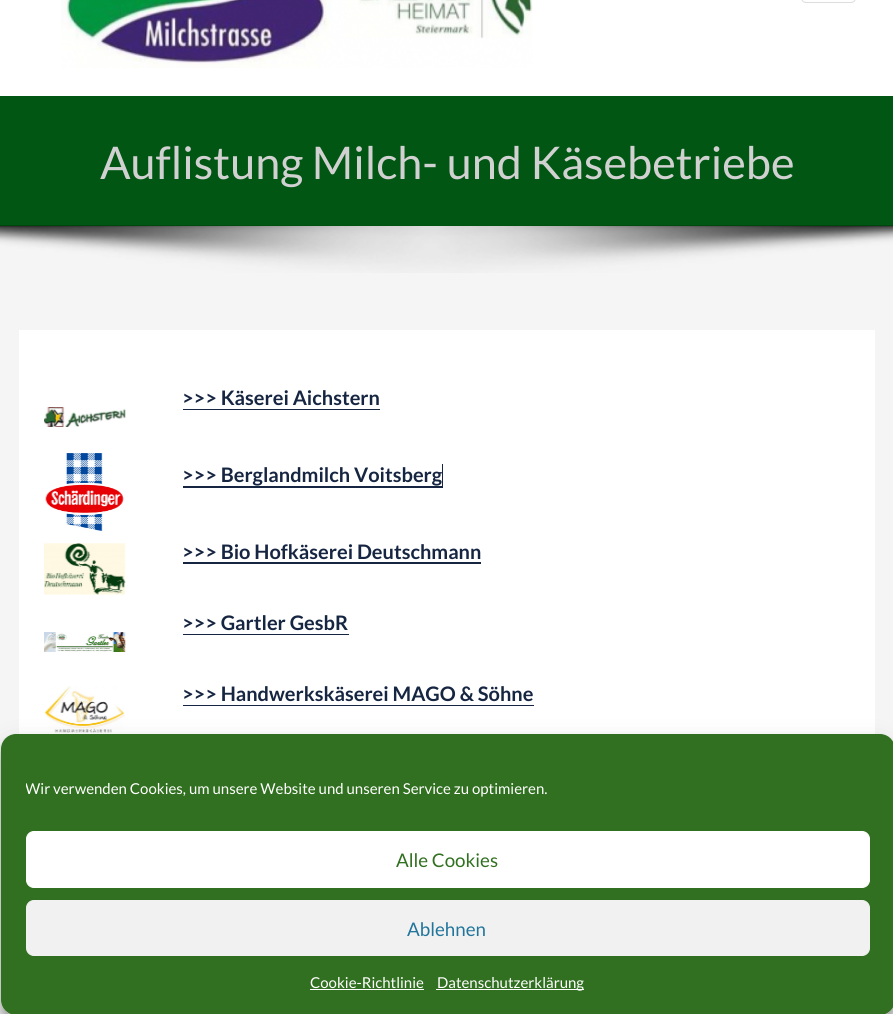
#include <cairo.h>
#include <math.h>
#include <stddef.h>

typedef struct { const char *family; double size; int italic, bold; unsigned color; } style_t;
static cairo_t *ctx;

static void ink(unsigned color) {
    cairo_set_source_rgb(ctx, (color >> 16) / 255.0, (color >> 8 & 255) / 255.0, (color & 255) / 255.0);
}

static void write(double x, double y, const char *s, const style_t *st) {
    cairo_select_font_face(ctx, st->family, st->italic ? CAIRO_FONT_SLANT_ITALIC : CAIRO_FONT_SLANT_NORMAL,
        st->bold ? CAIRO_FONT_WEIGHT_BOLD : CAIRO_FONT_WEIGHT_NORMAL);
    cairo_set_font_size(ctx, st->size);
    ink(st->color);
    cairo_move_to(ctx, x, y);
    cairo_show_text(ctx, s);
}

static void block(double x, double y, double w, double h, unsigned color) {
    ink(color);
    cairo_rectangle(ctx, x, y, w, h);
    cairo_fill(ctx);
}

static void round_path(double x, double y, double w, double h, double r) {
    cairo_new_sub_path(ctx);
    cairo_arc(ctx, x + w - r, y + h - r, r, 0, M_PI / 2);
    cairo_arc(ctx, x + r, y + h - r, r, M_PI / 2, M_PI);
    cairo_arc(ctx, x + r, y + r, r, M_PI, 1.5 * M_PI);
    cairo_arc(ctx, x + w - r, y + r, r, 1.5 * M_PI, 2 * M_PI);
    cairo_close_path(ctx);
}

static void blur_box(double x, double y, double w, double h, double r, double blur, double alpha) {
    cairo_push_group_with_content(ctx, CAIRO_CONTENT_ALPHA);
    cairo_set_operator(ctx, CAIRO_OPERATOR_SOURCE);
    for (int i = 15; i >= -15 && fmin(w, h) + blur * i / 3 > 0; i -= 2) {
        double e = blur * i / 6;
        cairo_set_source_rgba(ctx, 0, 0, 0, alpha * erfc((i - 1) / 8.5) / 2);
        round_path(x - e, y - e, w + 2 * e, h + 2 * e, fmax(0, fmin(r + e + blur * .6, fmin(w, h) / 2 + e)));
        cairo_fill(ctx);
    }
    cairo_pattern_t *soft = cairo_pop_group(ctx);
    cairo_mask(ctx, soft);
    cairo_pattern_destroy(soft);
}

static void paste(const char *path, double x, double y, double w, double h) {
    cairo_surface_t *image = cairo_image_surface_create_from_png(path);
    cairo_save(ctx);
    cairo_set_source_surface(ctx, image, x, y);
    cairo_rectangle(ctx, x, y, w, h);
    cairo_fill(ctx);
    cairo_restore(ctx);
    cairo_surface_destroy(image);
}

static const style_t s1 = {"Lato", 45, 0, 0, 0xd1d1d1};
static const style_t s2 = {"Lato", 20, 0, 1, 0x162541};
static const style_t s3 = {"Lato", 15, 0, 0, 0xffffff};
static const style_t s4 = {"Lato", 18.75, 0, 0, 0x317020};
static const style_t s5 = {"Lato", 18.75, 0, 0, 0x21759b};

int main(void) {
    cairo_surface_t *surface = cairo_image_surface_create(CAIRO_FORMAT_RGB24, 893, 1014);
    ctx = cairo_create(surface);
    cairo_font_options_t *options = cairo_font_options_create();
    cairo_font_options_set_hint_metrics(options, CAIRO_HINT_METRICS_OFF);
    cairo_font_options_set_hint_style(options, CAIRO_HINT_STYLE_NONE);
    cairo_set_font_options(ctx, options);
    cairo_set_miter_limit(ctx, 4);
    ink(0xf5f5f5);
    cairo_paint(ctx);
    block(0, 0, 893, 96, 0xffffff);
    round_path(801.5, -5.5, 54, 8, 4.5);
    ink(0xdddddd);
    cairo_set_line_width(ctx, 1);
    cairo_stroke(ctx);
    paste("pic1.png", 61, 0, 472, 68);
    block(0, 96, 893, 130, 0x005612);
    write(100, 179, "Auflistung Milch- und Käsebetriebe", &s1);
    paste("pic2.png", 0, 225, 893, 48);
    block(19, 330, 856, 404, 0xffffff);
    write(182, 405, ">>> Käserei Aichstern", &s2);
    block(183, 409, 197, 1, 0x162541);
    paste("pic3.png", 44, 407, 82, 20);
    paste("pic4.png", 45, 453, 79, 78);
    cairo_new_path(ctx);
    cairo_move_to(ctx, 183, 486);
    cairo_line_to(ctx, 183, 488);
    cairo_line_to(ctx, 443, 488);
    cairo_line_to(ctx, 443, 464);
    cairo_line_to(ctx, 442, 464);
    cairo_line_to(ctx, 442, 486);
    cairo_close_path(ctx);
    cairo_fill(ctx);
    write(182, 482, ">>> Berglandmilch Voitsberg", &s2);
    paste("pic5.png", 44, 543, 82, 52);
    write(182, 559, ">>> Bio Hofkäserei Deutschmann", &s2);
    block(183, 562, 298, 2, 0x162541);
    write(182, 630, ">>> Gartler GesbR", &s2);
    cairo_new_path(ctx);
    cairo_move_to(ctx, 183, 634);
    cairo_line_to(ctx, 183, 635);
    cairo_line_to(ctx, 349, 635);
    cairo_line_to(ctx, 349, 611);
    cairo_line_to(ctx, 349, 634);
    cairo_close_path(ctx);
    cairo_fill(ctx);
    paste("pic6.png", 44, 632, 82, 20);
    paste("pic7.png", 44, 686, 81, 47);
    write(182, 701, ">>> Handwerkskäserei MAGO & Söhne", &s2);
    cairo_new_path(ctx);
    cairo_move_to(ctx, 183, 705);
    cairo_line_to(ctx, 183, 706);
    cairo_line_to(ctx, 534, 706);
    cairo_line_to(ctx, 534, 683);
    cairo_line_to(ctx, 534, 705);
    cairo_close_path(ctx);
    cairo_fill(ctx);
    cairo_save(ctx);
    cairo_set_fill_rule(ctx, CAIRO_FILL_RULE_EVEN_ODD);
    cairo_new_path(ctx);
    cairo_move_to(ctx, 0, 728);
    cairo_line_to(ctx, 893, 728);
    cairo_line_to(ctx, 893, 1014);
    cairo_line_to(ctx, 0, 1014);
    cairo_close_path(ctx);
    cairo_move_to(ctx, 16, 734);
    cairo_line_to(ctx, 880, 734);
    cairo_curve_to(ctx, 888.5, 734, 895, 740.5, 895, 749);
    cairo_line_to(ctx, 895, 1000);
    cairo_curve_to(ctx, 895, 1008.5, 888.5, 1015, 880, 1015);
    cairo_line_to(ctx, 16, 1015);
    cairo_curve_to(ctx, 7.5, 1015, 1, 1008.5, 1, 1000);
    cairo_line_to(ctx, 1, 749);
    cairo_curve_to(ctx, 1, 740.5, 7.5, 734, 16, 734);
    cairo_close_path(ctx);
    cairo_clip(ctx);
    ink(0x000000);
    blur_box(1, 741, 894, 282, 15, 4, 0.23);
    cairo_restore(ctx);
    cairo_save(ctx);
    cairo_set_fill_rule(ctx, CAIRO_FILL_RULE_EVEN_ODD);
    cairo_new_path(ctx);
    cairo_move_to(ctx, 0, 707);
    cairo_line_to(ctx, 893, 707);
    cairo_line_to(ctx, 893, 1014);
    cairo_line_to(ctx, 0, 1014);
    cairo_close_path(ctx);
    cairo_move_to(ctx, 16, 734);
    cairo_line_to(ctx, 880, 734);
    cairo_curve_to(ctx, 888.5, 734, 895, 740.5, 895, 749);
    cairo_line_to(ctx, 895, 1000);
    cairo_curve_to(ctx, 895, 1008.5, 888.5, 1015, 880, 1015);
    cairo_line_to(ctx, 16, 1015);
    cairo_curve_to(ctx, 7.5, 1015, 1, 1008.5, 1, 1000);
    cairo_line_to(ctx, 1, 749);
    cairo_curve_to(ctx, 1, 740.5, 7.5, 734, 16, 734);
    cairo_close_path(ctx);
    cairo_clip(ctx);
    ink(0x000000);
    blur_box(1, 746, 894, 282, 15, 12.5, 0.19);
    cairo_restore(ctx);
    ink(0x317020);
    round_path(1, 734, 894, 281, 15);
    cairo_fill(ctx);
    cairo_save(ctx);
    cairo_rectangle(ctx, 26, 778, 844, 28);
    cairo_clip(ctx);
    write(25, 794, "Wir verwenden Cookies, um unsere Website und unseren Service zu optimieren.", &s3);
    cairo_restore(ctx);
    ink(0xffffff);
    round_path(26.5, 831.5, 843, 56, 7.5);
    cairo_fill_preserve(ctx);
    cairo_stroke(ctx);
    write(396, 867, "Alle Cookies", &s4);
    ink(0xf1f1f1);
    round_path(26.5, 900.5, 843, 55, 7.5);
    cairo_fill_preserve(ctx);
    cairo_stroke(ctx);
    write(407, 936, "Ablehnen", &s5);
    write(310, 988, "Cookie-Richtlinie", &s3);
    block(310, 989, 114, 1, 0xffffff);
    block(436, 989, 148, 1, 0xffffff);
    write(437, 988, "Datenschutzerklärung", &s3);
    cairo_surface_write_to_png(surface, "screenshot.png");
    cairo_font_options_destroy(options);
    cairo_destroy(ctx);
    cairo_surface_destroy(surface);
    return 0;
}
